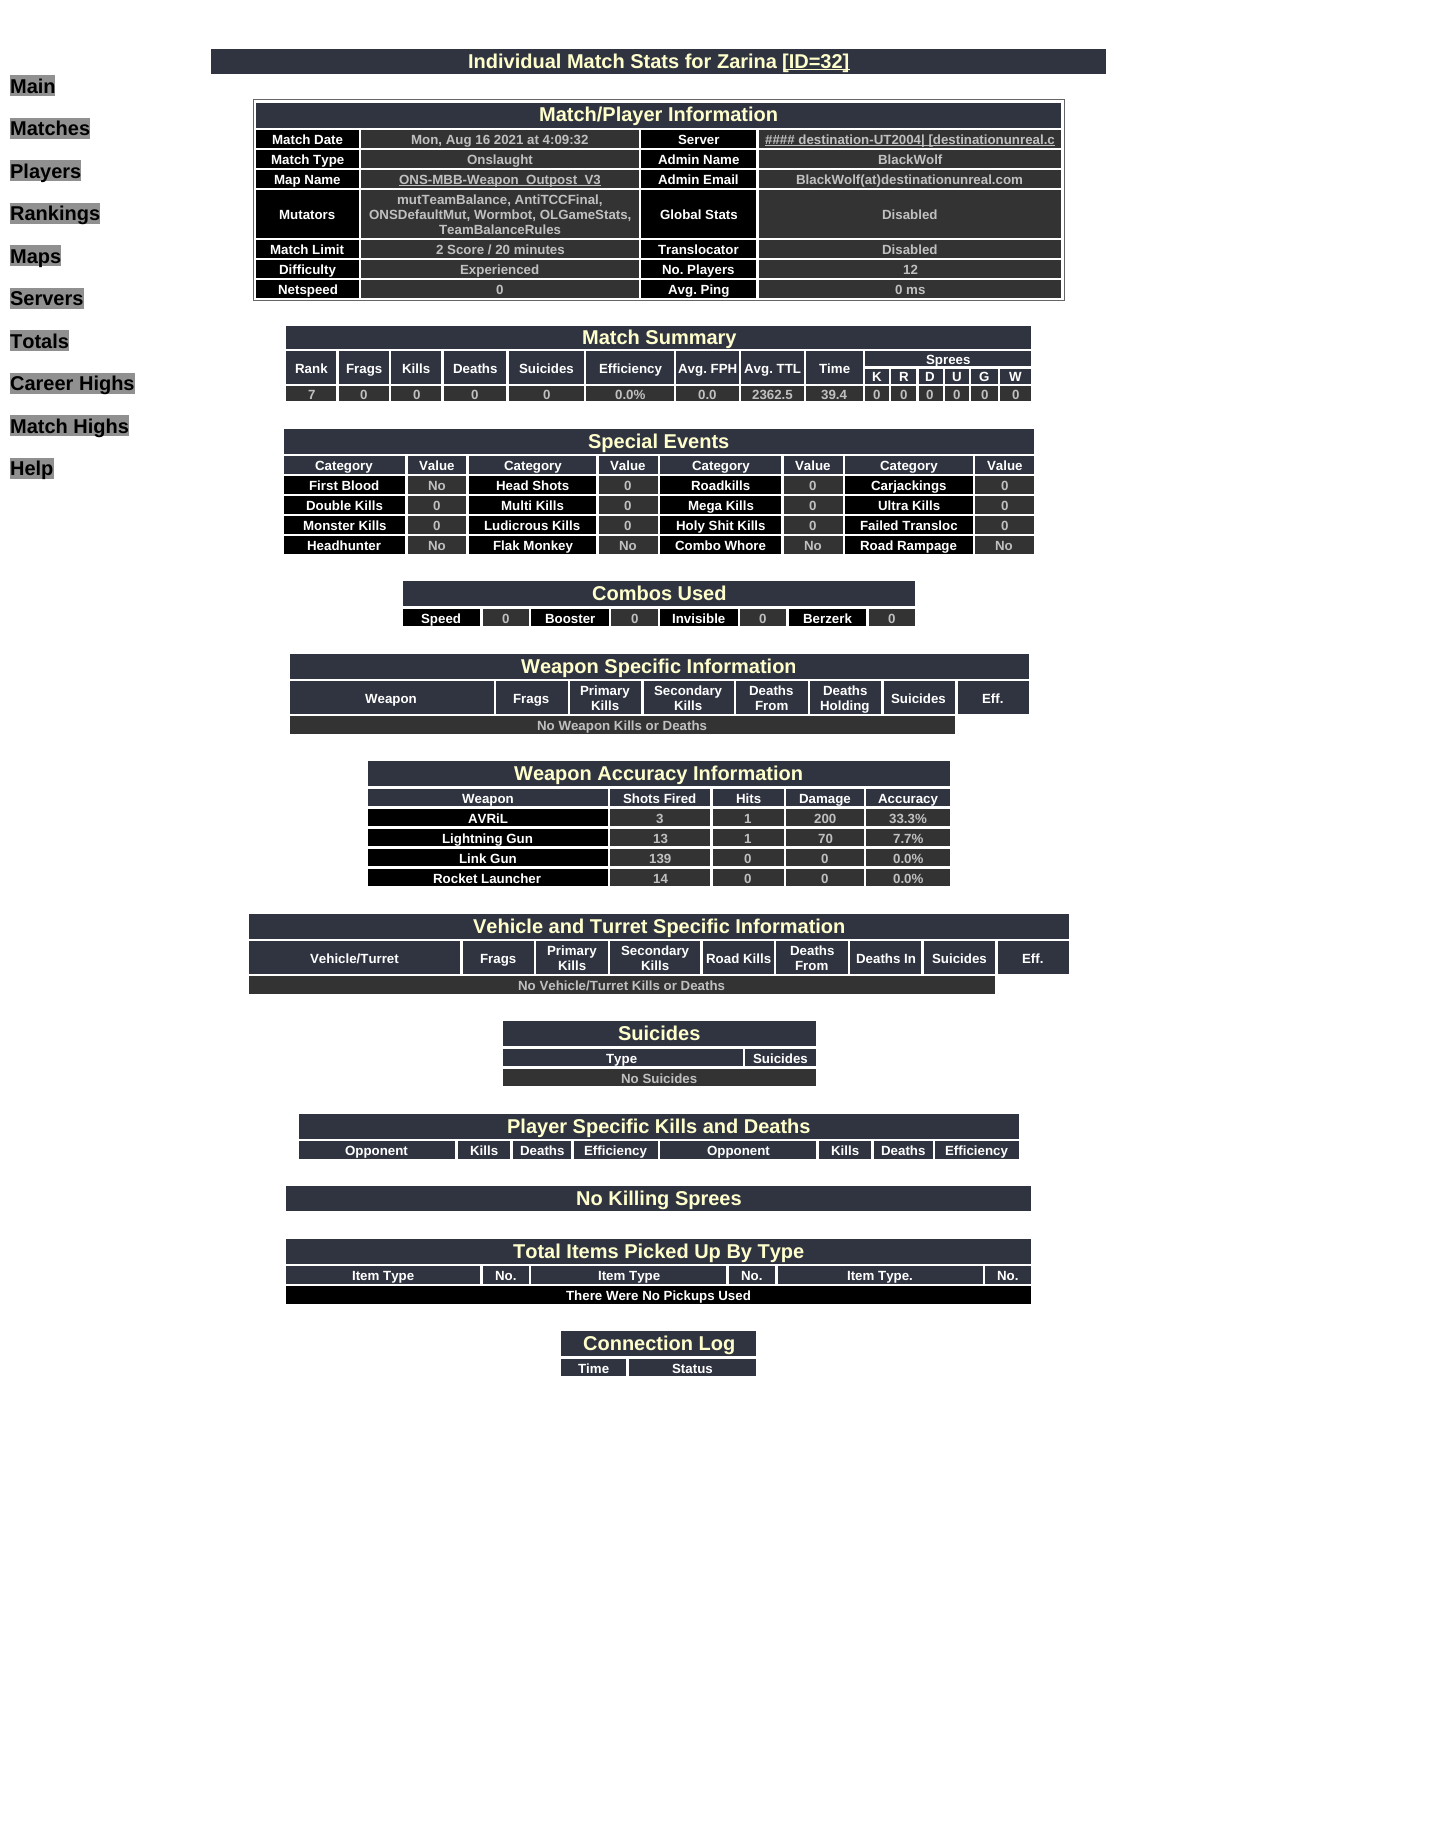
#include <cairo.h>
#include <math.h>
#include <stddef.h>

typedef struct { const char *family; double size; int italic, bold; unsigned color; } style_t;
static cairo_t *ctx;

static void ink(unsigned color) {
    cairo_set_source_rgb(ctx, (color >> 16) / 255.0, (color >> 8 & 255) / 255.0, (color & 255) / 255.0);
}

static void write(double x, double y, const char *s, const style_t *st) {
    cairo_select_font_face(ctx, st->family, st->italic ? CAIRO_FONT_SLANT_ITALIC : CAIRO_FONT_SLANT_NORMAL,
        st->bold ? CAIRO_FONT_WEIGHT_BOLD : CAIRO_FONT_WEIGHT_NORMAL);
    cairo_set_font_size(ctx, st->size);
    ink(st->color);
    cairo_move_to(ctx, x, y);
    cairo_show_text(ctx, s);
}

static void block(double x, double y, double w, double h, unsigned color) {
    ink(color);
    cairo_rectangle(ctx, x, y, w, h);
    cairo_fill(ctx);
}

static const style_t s1 = {"Liberation Sans", 20, 0, 1, 0x000000};
static const style_t s2 = {"Liberation Sans", 20, 0, 1, 0xffffcc};
static const style_t s3 = {"Liberation Sans", 13.3, 0, 1, 0xffffff};
static const style_t s4 = {"Liberation Sans", 13.3, 0, 1, 0xc0c0c0};

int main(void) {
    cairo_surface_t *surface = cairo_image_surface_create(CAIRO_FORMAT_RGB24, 1437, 1840);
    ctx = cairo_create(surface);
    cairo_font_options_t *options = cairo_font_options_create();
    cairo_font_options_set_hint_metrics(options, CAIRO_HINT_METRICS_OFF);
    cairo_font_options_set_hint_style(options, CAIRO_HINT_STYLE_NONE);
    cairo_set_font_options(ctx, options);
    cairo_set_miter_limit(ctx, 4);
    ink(0xffffff);
    cairo_paint(ctx);
    block(10, 75, 45, 21, 0x909090);
    write(10, 93, "Main", &s1);
    block(10, 118, 80, 21, 0x909090);
    write(10, 135, "Matches", &s1);
    block(10, 160, 71, 21, 0x909090);
    write(10, 178, "Players", &s1);
    block(10, 203, 90, 21, 0x909090);
    write(10, 220, "Rankings", &s1);
    block(10, 245, 51, 21, 0x909090);
    write(10, 263, "Maps", &s1);
    block(10, 288, 74, 21, 0x909090);
    write(10, 305, "Servers", &s1);
    block(10, 330, 59, 21, 0x909090);
    write(10, 348, "Totals", &s1);
    block(10, 373, 125, 21, 0x909090);
    write(10, 390, "Career Highs", &s1);
    block(10, 415, 119, 21, 0x909090);
    write(10, 433, "Match Highs", &s1);
    block(10, 458, 44, 21, 0x909090);
    write(10, 475, "Help", &s1);
    block(211, 49, 895, 25, 0x303441);
    write(468, 68, "Individual Match Stats for Zarina", &s2);
    block(783, 69, 67, 1, 0xffffcc);
    write(782, 68, "[ID=32]", &s2);
    cairo_rectangle(ctx, 253.5, 99.5, 811, 201);
    ink(0x666666);
    cairo_set_line_width(ctx, 1);
    cairo_stroke(ctx);
    block(256, 103, 805, 25, 0x303441);
    write(539, 121, "Match/Player Information", &s2);
    block(256, 130, 103, 18, 0x000000);
    write(272, 144, "Match Date", &s3);
    block(361, 130, 278, 18, 0x333333);
    write(411, 144, "Mon, Aug 16 2021 at 4:09:32", &s4);
    block(641, 130, 115, 18, 0x000000);
    write(678, 144, "Server", &s3);
    block(759, 130, 302, 18, 0x333333);
    block(765, 145, 290, 1, 0xc0c0c0);
    write(765, 144, "#### destination-UT2004| [destinationunreal.c", &s4);
    block(256, 150, 103, 18, 0x000000);
    write(271, 164, "Match Type", &s3);
    block(361, 150, 278, 18, 0x333333);
    write(467, 164, "Onslaught", &s4);
    block(641, 150, 115, 18, 0x000000);
    write(658, 164, "Admin Name", &s3);
    block(759, 150, 302, 18, 0x333333);
    write(878, 164, "BlackWolf", &s4);
    block(256, 170, 103, 18, 0x000000);
    write(274, 184, "Map Name", &s3);
    block(361, 170, 278, 18, 0x333333);
    block(399, 185, 202, 1, 0xc0c0c0);
    write(399, 184, "ONS-MBB-Weapon_Outpost_V3", &s4);
    block(641, 170, 115, 18, 0x000000);
    write(658, 184, "Admin Email", &s3);
    block(759, 170, 302, 18, 0x333333);
    write(796, 184, "BlackWolf(at)destinationunreal.com", &s4);
    block(256, 190, 103, 48, 0x000000);
    write(279, 219, "Mutators", &s3);
    block(361, 190, 278, 48, 0x333333);
    write(397, 204, "mutTeamBalance, AntiTCCFinal,", &s4);
    write(369, 219, "ONSDefaultMut, Wormbot, OLGameStats,", &s4);
    write(439, 234, "TeamBalanceRules", &s4);
    block(641, 190, 115, 48, 0x000000);
    write(660, 219, "Global Stats", &s3);
    block(759, 190, 302, 48, 0x333333);
    write(882, 219, "Disabled", &s4);
    block(256, 240, 103, 18, 0x000000);
    write(270, 254, "Match Limit", &s3);
    block(361, 240, 278, 18, 0x333333);
    write(436, 254, "2 Score / 20 minutes", &s4);
    block(641, 240, 115, 18, 0x000000);
    write(658, 254, "Translocator", &s3);
    block(759, 240, 302, 18, 0x333333);
    write(882, 254, "Disabled", &s4);
    block(256, 260, 103, 18, 0x000000);
    write(279, 274, "Difficulty", &s3);
    block(361, 260, 278, 18, 0x333333);
    write(460, 274, "Experienced", &s4);
    block(641, 260, 115, 18, 0x000000);
    write(662, 274, "No. Players", &s3);
    block(759, 260, 302, 18, 0x333333);
    write(903, 274, "12", &s4);
    block(256, 280, 103, 18, 0x000000);
    write(278, 294, "Netspeed", &s3);
    block(361, 280, 278, 18, 0x333333);
    write(496, 294, "0", &s4);
    block(641, 280, 115, 18, 0x000000);
    write(668, 294, "Avg. Ping", &s3);
    block(759, 280, 302, 18, 0x333333);
    write(895, 294, "0 ms", &s4);
    block(286, 326, 745, 23, 0x303441);
    write(582, 344, "Match Summary", &s2);
    block(865, 351, 166, 15, 0x303441);
    write(926, 364, "Sprees", &s3);
    block(286, 351, 50, 33, 0x303441);
    write(295, 373, "Rank", &s3);
    block(339, 351, 50, 33, 0x303441);
    write(346, 373, "Frags", &s3);
    block(391, 351, 50, 33, 0x303441);
    write(402, 373, "Kills", &s3);
    block(444, 351, 62, 33, 0x303441);
    write(453, 373, "Deaths", &s3);
    block(509, 351, 75, 33, 0x303441);
    write(519, 373, "Suicides", &s3);
    block(586, 351, 88, 33, 0x303441);
    write(599, 373, "Efficiency", &s3);
    block(676, 351, 63, 33, 0x303441);
    write(678, 373, "Avg. FPH", &s3);
    block(741, 351, 63, 33, 0x303441);
    write(744, 373, "Avg. TTL", &s3);
    block(806, 351, 57, 33, 0x303441);
    write(819, 373, "Time", &s3);
    block(865, 369, 24, 15, 0x303441);
    write(872, 381, "K", &s3);
    block(891, 369, 25, 15, 0x303441);
    write(899, 381, "R", &s3);
    block(919, 369, 24, 15, 0x303441);
    write(925, 381, "D", &s3);
    block(945, 369, 24, 15, 0x303441);
    write(952, 381, "U", &s3);
    block(971, 369, 27, 15, 0x303441);
    write(979, 381, "G", &s3);
    block(1000, 369, 31, 15, 0x303441);
    write(1009, 381, "W", &s3);
    block(286, 386, 50, 15, 0x333333);
    write(308, 399, "7", &s4);
    block(339, 386, 50, 15, 0x333333);
    write(360, 399, "0", &s4);
    block(391, 386, 50, 15, 0x333333);
    write(413, 399, "0", &s4);
    block(444, 386, 62, 15, 0x333333);
    write(471, 399, "0", &s4);
    block(509, 386, 75, 15, 0x333333);
    write(543, 399, "0", &s4);
    block(586, 386, 88, 15, 0x333333);
    write(615, 399, "0.0%", &s4);
    block(676, 386, 63, 15, 0x333333);
    write(698, 399, "0.0", &s4);
    block(741, 386, 63, 15, 0x333333);
    write(752, 399, "2362.5", &s4);
    block(806, 386, 57, 15, 0x333333);
    write(821, 399, "39.4", &s4);
    block(865, 386, 24, 15, 0x333333);
    write(873, 399, "0", &s4);
    block(891, 386, 25, 15, 0x333333);
    write(900, 399, "0", &s4);
    block(919, 386, 24, 15, 0x333333);
    write(926, 399, "0", &s4);
    block(945, 386, 24, 15, 0x333333);
    write(953, 399, "0", &s4);
    block(971, 386, 27, 15, 0x333333);
    write(981, 399, "0", &s4);
    block(1000, 386, 31, 15, 0x333333);
    write(1012, 399, "0", &s4);
    block(284, 429, 750, 25, 0x303441);
    write(588, 448, "Special Events", &s2);
    block(284, 456, 121, 18, 0x303441);
    write(315, 470, "Category", &s3);
    block(408, 456, 58, 18, 0x303441);
    write(419, 470, "Value", &s3);
    block(469, 456, 127, 18, 0x303441);
    write(504, 470, "Category", &s3);
    block(599, 456, 59, 18, 0x303441);
    write(610, 470, "Value", &s3);
    block(660, 456, 121, 18, 0x303441);
    write(692, 470, "Category", &s3);
    block(784, 456, 59, 18, 0x303441);
    write(795, 470, "Value", &s3);
    block(845, 456, 128, 18, 0x303441);
    write(880, 470, "Category", &s3);
    block(975, 456, 59, 18, 0x303441);
    write(987, 470, "Value", &s3);
    block(284, 476, 121, 18, 0x000000);
    write(309, 490, "First Blood", &s3);
    block(408, 476, 58, 18, 0x333333);
    write(428, 490, "No", &s4);
    block(469, 476, 127, 18, 0x000000);
    write(496, 490, "Head Shots", &s3);
    block(599, 476, 59, 18, 0x333333);
    write(624, 490, "0", &s4);
    block(660, 476, 121, 18, 0x000000);
    write(691, 490, "Roadkills", &s3);
    block(784, 476, 59, 18, 0x333333);
    write(809, 490, "0", &s4);
    block(845, 476, 128, 18, 0x000000);
    write(871, 490, "Carjackings", &s3);
    block(975, 476, 59, 18, 0x333333);
    write(1001, 490, "0", &s4);
    block(284, 496, 121, 18, 0x000000);
    write(306, 510, "Double Kills", &s3);
    block(408, 496, 58, 18, 0x333333);
    write(433, 510, "0", &s4);
    block(469, 496, 127, 18, 0x000000);
    write(501, 510, "Multi Kills", &s3);
    block(599, 496, 59, 18, 0x333333);
    write(624, 510, "0", &s4);
    block(660, 496, 121, 18, 0x000000);
    write(688, 510, "Mega Kills", &s3);
    block(784, 496, 59, 18, 0x333333);
    write(809, 510, "0", &s4);
    block(845, 496, 128, 18, 0x000000);
    write(878, 510, "Ultra Kills", &s3);
    block(975, 496, 59, 18, 0x333333);
    write(1001, 510, "0", &s4);
    block(284, 516, 121, 18, 0x000000);
    write(303, 530, "Monster Kills", &s3);
    block(408, 516, 58, 18, 0x333333);
    write(433, 530, "0", &s4);
    block(469, 516, 127, 18, 0x000000);
    write(484, 530, "Ludicrous Kills", &s3);
    block(599, 516, 59, 18, 0x333333);
    write(624, 530, "0", &s4);
    block(660, 516, 121, 18, 0x000000);
    write(676, 530, "Holy Shit Kills", &s3);
    block(784, 516, 59, 18, 0x333333);
    write(809, 530, "0", &s4);
    block(845, 516, 128, 18, 0x000000);
    write(860, 530, "Failed Transloc", &s3);
    block(975, 516, 59, 18, 0x333333);
    write(1001, 530, "0", &s4);
    block(284, 536, 121, 18, 0x000000);
    write(307, 550, "Headhunter", &s3);
    block(408, 536, 58, 18, 0x333333);
    write(428, 550, "No", &s4);
    block(469, 536, 127, 18, 0x000000);
    write(493, 550, "Flak Monkey", &s3);
    block(599, 536, 59, 18, 0x333333);
    write(619, 550, "No", &s4);
    block(660, 536, 121, 18, 0x000000);
    write(675, 550, "Combo Whore", &s3);
    block(784, 536, 59, 18, 0x333333);
    write(804, 550, "No", &s4);
    block(845, 536, 128, 18, 0x000000);
    write(860, 550, "Road Rampage", &s3);
    block(975, 536, 59, 18, 0x333333);
    write(995, 550, "No", &s4);
    block(403, 581, 512, 25, 0x303441);
    write(592, 600, "Combos Used", &s2);
    block(403, 609, 77, 17, 0x000000);
    write(421, 623, "Speed", &s3);
    block(483, 609, 46, 17, 0x333333);
    write(502, 623, "0", &s4);
    block(531, 609, 78, 17, 0x000000);
    write(545, 623, "Booster", &s3);
    block(611, 609, 47, 17, 0x333333);
    write(631, 623, "0", &s4);
    block(660, 609, 78, 17, 0x000000);
    write(672, 623, "Invisible", &s3);
    block(740, 609, 46, 17, 0x333333);
    write(759, 623, "0", &s4);
    block(789, 609, 77, 17, 0x000000);
    write(803, 623, "Berzerk", &s3);
    block(869, 609, 46, 17, 0x333333);
    write(888, 623, "0", &s4);
    block(290, 654, 739, 25, 0x303441);
    write(521, 673, "Weapon Specific Information", &s2);
    block(290, 681, 204, 33, 0x303441);
    write(365, 703, "Weapon", &s3);
    block(496, 681, 72, 33, 0x303441);
    write(513, 703, "Frags", &s3);
    block(570, 681, 71, 33, 0x303441);
    write(580, 695, "Primary", &s3);
    write(591, 710, "Kills", &s3);
    block(644, 681, 90, 33, 0x303441);
    write(654, 695, "Secondary", &s3);
    write(674, 710, "Kills", &s3);
    block(736, 681, 72, 33, 0x303441);
    write(749, 695, "Deaths", &s3);
    write(755, 710, "From", &s3);
    block(810, 681, 71, 33, 0x303441);
    write(823, 695, "Deaths", &s3);
    write(820, 710, "Holding", &s3);
    block(884, 681, 71, 33, 0x303441);
    write(891, 703, "Suicides", &s3);
    block(958, 681, 71, 33, 0x303441);
    write(982, 703, "Eff.", &s3);
    block(290, 716, 665, 18, 0x333333);
    write(537, 730, "No Weapon Kills or Deaths", &s4);
    block(368, 761, 582, 25, 0x303441);
    write(514, 780, "Weapon Accuracy Information", &s2);
    block(368, 789, 240, 17, 0x303441);
    write(462, 803, "Weapon", &s3);
    block(610, 789, 100, 17, 0x303441);
    write(623, 803, "Shots Fired", &s3);
    block(713, 789, 71, 17, 0x303441);
    write(736, 803, "Hits", &s3);
    block(786, 789, 78, 17, 0x303441);
    write(799, 803, "Damage", &s3);
    block(866, 789, 84, 17, 0x303441);
    write(878, 803, "Accuracy", &s3);
    block(368, 809, 240, 17, 0x000000);
    write(468, 823, "AVRiL", &s3);
    block(610, 809, 100, 17, 0x333333);
    write(656, 823, "3", &s4);
    block(713, 809, 71, 17, 0x333333);
    write(744, 823, "1", &s4);
    block(786, 809, 78, 17, 0x333333);
    write(814, 823, "200", &s4);
    block(866, 809, 84, 17, 0x333333);
    write(889, 823, "33.3%", &s4);
    block(368, 829, 240, 17, 0x000000);
    write(442, 843, "Lightning Gun", &s3);
    block(610, 829, 100, 17, 0x333333);
    write(653, 843, "13", &s4);
    block(713, 829, 71, 17, 0x333333);
    write(744, 843, "1", &s4);
    block(786, 829, 78, 17, 0x333333);
    write(818, 843, "70", &s4);
    block(866, 829, 84, 17, 0x333333);
    write(893, 843, "7.7%", &s4);
    block(368, 849, 240, 17, 0x000000);
    write(459, 863, "Link Gun", &s3);
    block(610, 849, 100, 17, 0x333333);
    write(649, 863, "139", &s4);
    block(713, 849, 71, 17, 0x333333);
    write(744, 863, "0", &s4);
    block(786, 849, 78, 17, 0x333333);
    write(821, 863, "0", &s4);
    block(866, 849, 84, 17, 0x333333);
    write(893, 863, "0.0%", &s4);
    block(368, 869, 240, 17, 0x000000);
    write(433, 883, "Rocket Launcher", &s3);
    block(610, 869, 100, 17, 0x333333);
    write(653, 883, "14", &s4);
    block(713, 869, 71, 17, 0x333333);
    write(744, 883, "0", &s4);
    block(786, 869, 78, 17, 0x333333);
    write(821, 883, "0", &s4);
    block(866, 869, 84, 17, 0x333333);
    write(893, 883, "0.0%", &s4);
    block(249, 914, 820, 25, 0x303441);
    write(473, 933, "Vehicle and Turret Specific Information", &s2);
    block(249, 941, 211, 33, 0x303441);
    write(310, 963, "Vehicle/Turret", &s3);
    block(463, 941, 71, 33, 0x303441);
    write(480, 963, "Frags", &s3);
    block(536, 941, 72, 33, 0x303441);
    write(547, 955, "Primary", &s3);
    write(558, 970, "Kills", &s3);
    block(610, 941, 90, 33, 0x303441);
    write(621, 955, "Secondary", &s3);
    write(641, 970, "Kills", &s3);
    block(703, 941, 71, 33, 0x303441);
    write(706, 963, "Road Kills", &s3);
    block(776, 941, 72, 33, 0x303441);
    write(790, 955, "Deaths", &s3);
    write(795, 970, "From", &s3);
    block(850, 941, 71, 33, 0x303441);
    write(856, 963, "Deaths In", &s3);
    block(924, 941, 71, 33, 0x303441);
    write(932, 963, "Suicides", &s3);
    block(998, 941, 71, 33, 0x303441);
    write(1022, 963, "Eff.", &s3);
    block(249, 976, 746, 18, 0x333333);
    write(518, 990, "No Vehicle/Turret Kills or Deaths", &s4);
    block(503, 1021, 313, 25, 0x303441);
    write(618, 1040, "Suicides", &s2);
    block(503, 1049, 240, 17, 0x303441);
    write(606, 1063, "Type", &s3);
    block(745, 1049, 71, 17, 0x303441);
    write(753, 1063, "Suicides", &s3);
    block(503, 1069, 313, 17, 0x333333);
    write(621, 1083, "No Suicides", &s4);
    block(299, 1114, 720, 25, 0x303441);
    write(507, 1133, "Player Specific Kills and Deaths", &s2);
    block(299, 1141, 156, 18, 0x303441);
    write(345, 1155, "Opponent", &s3);
    block(458, 1141, 52, 18, 0x303441);
    write(470, 1155, "Kills", &s3);
    block(513, 1141, 58, 18, 0x303441);
    write(520, 1155, "Deaths", &s3);
    block(574, 1141, 84, 18, 0x303441);
    write(584, 1155, "Efficiency", &s3);
    block(660, 1141, 156, 18, 0x303441);
    write(707, 1155, "Opponent", &s3);
    block(819, 1141, 52, 18, 0x303441);
    write(831, 1155, "Kills", &s3);
    block(874, 1141, 59, 18, 0x303441);
    write(881, 1155, "Deaths", &s3);
    block(935, 1141, 84, 18, 0x303441);
    write(945, 1155, "Efficiency", &s3);
    block(286, 1186, 745, 25, 0x303441);
    write(576, 1205, "No Killing Sprees", &s2);
    block(286, 1239, 745, 25, 0x303441);
    write(513, 1258, "Total Items Picked Up By Type", &s2);
    block(286, 1266, 194, 18, 0x303441);
    write(352, 1280, "Item Type", &s3);
    block(483, 1266, 46, 18, 0x303441);
    write(495, 1280, "No.", &s3);
    block(531, 1266, 195, 18, 0x303441);
    write(598, 1280, "Item Type", &s3);
    block(729, 1266, 46, 18, 0x303441);
    write(741, 1280, "No.", &s3);
    block(778, 1266, 205, 18, 0x303441);
    write(847, 1280, "Item Type.", &s3);
    block(985, 1266, 46, 18, 0x303441);
    write(997, 1280, "No.", &s3);
    block(286, 1286, 745, 18, 0x000000);
    write(566, 1300, "There Were No Pickups Used", &s3);
    block(561, 1331, 195, 25, 0x303441);
    write(583, 1350, "Connection Log", &s2);
    block(561, 1359, 65, 17, 0x303441);
    write(578, 1373, "Time", &s3);
    block(629, 1359, 127, 17, 0x303441);
    write(672, 1373, "Status", &s3);
    cairo_surface_write_to_png(surface, "screenshot.png");
    cairo_font_options_destroy(options);
    cairo_destroy(ctx);
    cairo_surface_destroy(surface);
    return 0;
}
